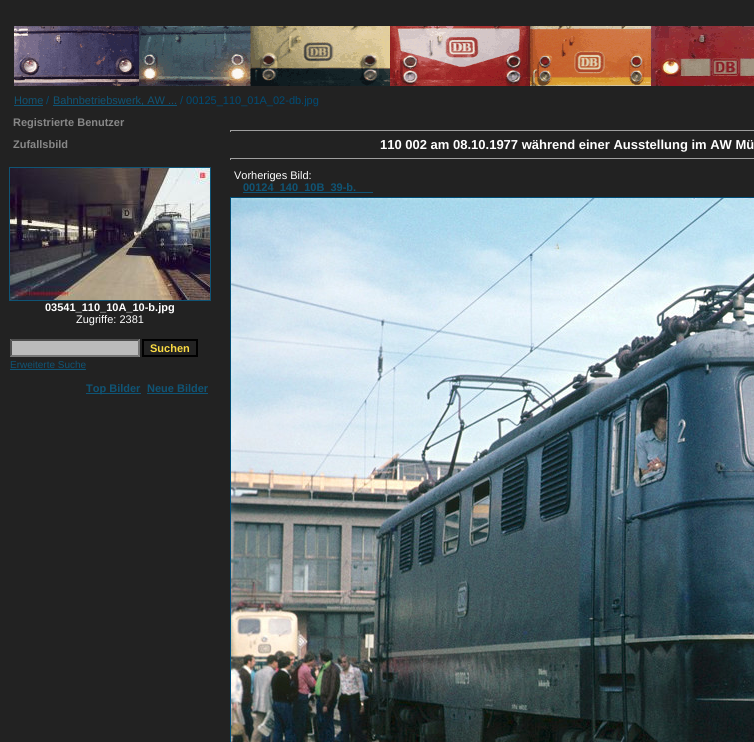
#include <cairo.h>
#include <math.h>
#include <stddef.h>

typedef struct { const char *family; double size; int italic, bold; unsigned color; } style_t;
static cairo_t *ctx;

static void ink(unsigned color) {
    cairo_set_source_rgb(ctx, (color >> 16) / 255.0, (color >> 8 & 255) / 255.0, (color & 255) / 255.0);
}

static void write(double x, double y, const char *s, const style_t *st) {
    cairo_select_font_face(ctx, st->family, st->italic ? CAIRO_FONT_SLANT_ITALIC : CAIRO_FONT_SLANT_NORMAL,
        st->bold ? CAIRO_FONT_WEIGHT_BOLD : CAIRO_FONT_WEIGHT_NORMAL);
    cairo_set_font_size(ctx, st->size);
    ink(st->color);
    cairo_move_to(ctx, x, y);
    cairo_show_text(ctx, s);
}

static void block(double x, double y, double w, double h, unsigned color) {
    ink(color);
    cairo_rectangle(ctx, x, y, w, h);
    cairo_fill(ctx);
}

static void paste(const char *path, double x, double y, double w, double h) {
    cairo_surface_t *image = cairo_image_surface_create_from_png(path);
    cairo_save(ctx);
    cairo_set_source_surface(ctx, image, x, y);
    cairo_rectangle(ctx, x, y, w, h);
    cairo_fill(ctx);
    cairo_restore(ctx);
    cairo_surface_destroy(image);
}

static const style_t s1 = {"Liberation Sans", 11, 0, 0, 0x0f5475};
static const style_t s2 = {"Liberation Sans", 11, 0, 0, 0x004c75};
static const style_t s3 = {"Liberation Sans", 11, 0, 1, 0x888888};
static const style_t s4 = {"Liberation Sans", 11, 0, 1, 0xffffff};
static const style_t s5 = {"Liberation Sans", 11, 0, 0, 0xffffff};
static const style_t s6 = {"Liberation Sans", 11, 0, 1, 0xfcdc43};
static const style_t s7 = {"Liberation Sans", 10, 0, 0, 0x0f5475};
static const style_t s8 = {"Liberation Sans", 11, 0, 1, 0x0f5475};
static const style_t s9 = {"Liberation Sans", 13, 0, 1, 0xffffff};

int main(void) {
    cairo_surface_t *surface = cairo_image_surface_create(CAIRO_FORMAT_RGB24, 754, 742);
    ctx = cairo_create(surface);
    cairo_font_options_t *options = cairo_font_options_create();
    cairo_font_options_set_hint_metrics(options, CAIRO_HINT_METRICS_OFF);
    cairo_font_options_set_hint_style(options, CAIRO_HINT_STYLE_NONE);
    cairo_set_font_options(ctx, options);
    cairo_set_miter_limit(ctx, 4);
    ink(0x222222);
    cairo_paint(ctx);
    paste("pic1.png", 14, 26, 740, 60);
    write(14, 104, "Home", &s1);
    block(14, 105, 29, 1, 0x0f5475);
    write(46, 104, "/", &s2);
    block(53, 105, 124, 1, 0x0f5475);
    write(53, 104, "Bahnbetriebswerk, AW ...", &s1);
    write(180, 104, "/ 00125_110_01A_02-db.jpg", &s2);
    write(13, 126, "Registrierte Benutzer", &s3);
    write(13, 148, "Zufallsbild", &s3);
    cairo_rectangle(ctx, 9.5, 167.5, 201, 133);
    ink(0x0f5475);
    cairo_set_line_width(ctx, 1);
    cairo_stroke(ctx);
    paste("pic2.png", 10, 168, 200, 132);
    write(45, 311, "03541_110_10A_10-b.jpg", &s4);
    write(76, 323, "Zugriffe: 2381", &s5);
    block(10, 339, 130, 18, 0xbbbbbb);
    ink(0x4f4f4f);
    cairo_new_path(ctx);
    cairo_move_to(ctx, 10, 339);
    cairo_line_to(ctx, 140, 339);
    cairo_line_to(ctx, 138, 341);
    cairo_line_to(ctx, 12, 341);
    cairo_close_path(ctx);
    cairo_fill(ctx);
    ink(0x767676);
    cairo_new_path(ctx);
    cairo_move_to(ctx, 140, 339);
    cairo_line_to(ctx, 140, 357);
    cairo_line_to(ctx, 138, 355);
    cairo_line_to(ctx, 138, 341);
    cairo_close_path(ctx);
    cairo_fill(ctx);
    cairo_new_path(ctx);
    cairo_move_to(ctx, 140, 357);
    cairo_line_to(ctx, 10, 357);
    cairo_line_to(ctx, 12, 355);
    cairo_line_to(ctx, 138, 355);
    cairo_close_path(ctx);
    cairo_fill(ctx);
    ink(0x4f4f4f);
    cairo_new_path(ctx);
    cairo_move_to(ctx, 10, 357);
    cairo_line_to(ctx, 10, 339);
    cairo_line_to(ctx, 12, 341);
    cairo_line_to(ctx, 12, 355);
    cairo_close_path(ctx);
    cairo_fill(ctx);
    cairo_rectangle(ctx, 143, 340, 54, 16);
    ink(0x000000);
    cairo_set_line_width(ctx, 2);
    cairo_stroke(ctx);
    write(150, 352, "Suchen", &s6);
    write(10, 368, "Erweiterte Suche", &s7);
    block(10, 369, 76, 1, 0x0f5475);
    block(86, 393, 55, 1, 0x0f5475);
    write(86, 392, "Top Bilder", &s8);
    write(147, 392, "Neue Bilder", &s8);
    block(147, 393, 61, 1, 0x0f5475);
    block(230, 130, 524, 1, 0x9f9f9f);
    block(230, 130, 1, 2, 0x9f9f9f);
    write(380, 149, "110 002 am 08.10.1977 während einer Ausstellung im AW Mü", &s9);
    block(230, 158, 524, 1, 0x9f9f9f);
    block(230, 158, 1, 2, 0x9f9f9f);
    write(234, 179, "Vorheriges Bild:", &s5);
    block(243, 192, 130, 1, 0x0f5475);
    write(243, 191, "00124_140_10B_39-b.", &s8);
    cairo_rectangle(ctx, 230.5, 197.5, 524, 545);
    ink(0x004c75);
    cairo_set_line_width(ctx, 1);
    cairo_stroke(ctx);
    paste("pic3.png", 231, 198, 523, 544);
    cairo_surface_write_to_png(surface, "screenshot.png");
    cairo_font_options_destroy(options);
    cairo_destroy(ctx);
    cairo_surface_destroy(surface);
    return 0;
}
